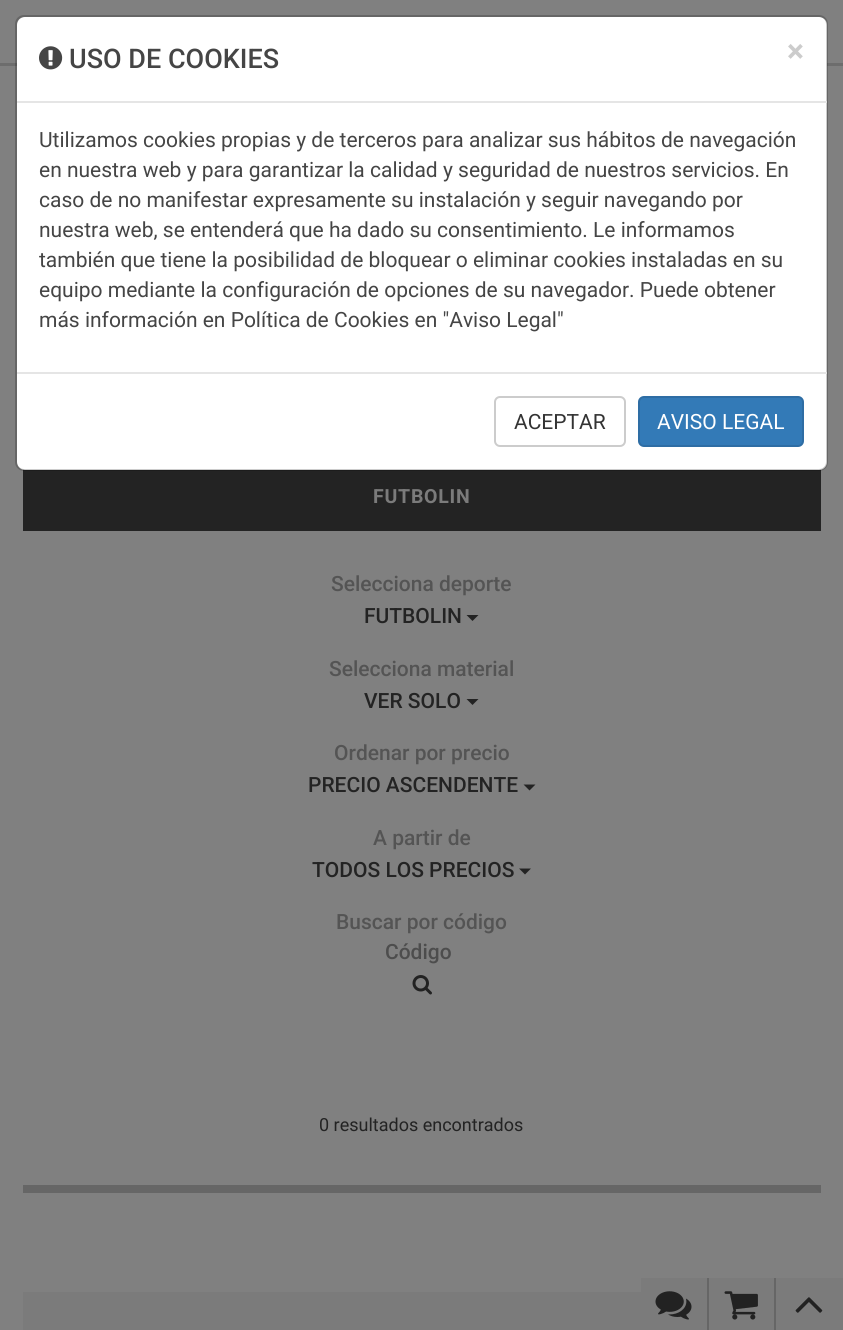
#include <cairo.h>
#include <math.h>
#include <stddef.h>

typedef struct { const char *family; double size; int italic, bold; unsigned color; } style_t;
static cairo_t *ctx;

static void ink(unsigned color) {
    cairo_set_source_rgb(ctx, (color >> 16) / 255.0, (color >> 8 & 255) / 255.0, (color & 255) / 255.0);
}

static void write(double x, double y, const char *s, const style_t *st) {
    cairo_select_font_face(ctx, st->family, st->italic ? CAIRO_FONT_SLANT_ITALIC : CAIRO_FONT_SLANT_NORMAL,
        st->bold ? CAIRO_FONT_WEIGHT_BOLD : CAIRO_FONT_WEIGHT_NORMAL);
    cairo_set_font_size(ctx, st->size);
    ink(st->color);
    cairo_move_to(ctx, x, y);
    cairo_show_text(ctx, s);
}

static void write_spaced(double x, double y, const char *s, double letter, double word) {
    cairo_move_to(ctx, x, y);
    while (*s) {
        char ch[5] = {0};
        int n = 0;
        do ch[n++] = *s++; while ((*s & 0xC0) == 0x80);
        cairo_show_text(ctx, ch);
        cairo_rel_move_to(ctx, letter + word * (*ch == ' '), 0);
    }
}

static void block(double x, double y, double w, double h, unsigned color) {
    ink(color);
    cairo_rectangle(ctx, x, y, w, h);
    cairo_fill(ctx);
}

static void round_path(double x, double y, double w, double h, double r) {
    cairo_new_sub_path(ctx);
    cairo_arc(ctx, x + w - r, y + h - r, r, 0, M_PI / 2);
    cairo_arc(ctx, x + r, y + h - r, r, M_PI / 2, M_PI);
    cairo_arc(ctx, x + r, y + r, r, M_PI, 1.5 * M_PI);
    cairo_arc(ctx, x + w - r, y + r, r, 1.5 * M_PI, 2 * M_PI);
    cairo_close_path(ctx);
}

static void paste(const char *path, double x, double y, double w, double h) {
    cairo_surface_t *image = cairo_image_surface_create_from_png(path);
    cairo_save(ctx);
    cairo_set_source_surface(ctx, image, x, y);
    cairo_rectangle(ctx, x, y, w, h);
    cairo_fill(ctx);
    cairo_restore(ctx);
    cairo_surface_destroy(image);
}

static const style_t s1 = {"Roboto Medium", 27, 0, 0, 0x454545};
static const style_t s2 = {"Roboto", 32, 0, 1, 0xcccccc};
static const style_t s3 = {"Roboto", 21, 0, 0, 0x454545};
static const style_t s4 = {"Roboto", 21, 0, 0, 0x333333};
static const style_t s5 = {"Roboto", 21, 0, 0, 0xffffff};
static const style_t s6 = {"Roboto Medium", 21, 0, 0, 0x545454};
static const style_t s7 = {"Roboto Medium", 21, 0, 0, 0x232323};
static const style_t s8 = {"Roboto Medium", 21, 0, 0, 0x4d4d4d};
static const style_t s9 = {"Roboto", 18, 0, 0, 0x232323};

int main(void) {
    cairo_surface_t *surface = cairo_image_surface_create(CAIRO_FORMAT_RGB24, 843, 1330);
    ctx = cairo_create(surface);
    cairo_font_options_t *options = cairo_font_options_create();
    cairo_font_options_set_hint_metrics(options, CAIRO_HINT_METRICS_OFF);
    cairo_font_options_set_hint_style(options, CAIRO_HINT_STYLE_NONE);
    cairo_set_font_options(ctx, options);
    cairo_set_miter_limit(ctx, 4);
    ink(0x808080);
    cairo_paint(ctx);
    block(0, 63, 843, 3, 0x6d6d6d);
    block(23, 469, 798, 62, 0x232323);
    ink(0xffffff);
    round_path(17, 17, 810, 453, 8);
    cairo_fill(ctx);
    round_path(16, 16, 811, 454, 8);
    cairo_set_source_rgba(ctx, 0, 0, 0, 0.2);
    cairo_stroke(ctx);
    block(17, 101, 810, 2, 0xe5e5e5);
    paste("pic1.png", 39, 46, 24, 24);
    write(69, 68, "USO DE COOKIES", &s1);
    write(787, 62, "×", &s2);
    write(39, 147, "Utilizamos cookies propias y de terceros para analizar sus hábitos de navegación", &s3);
    write(39, 177, "en nuestra web y para garantizar la calidad y seguridad de nuestros servicios. En", &s3);
    write(39, 207, "caso de no manifestar expresamente su instalación y seguir navegando por", &s3);
    write(39, 237, "nuestra web, se entenderá que ha dado su consentimiento. Le informamos", &s3);
    write(39, 267, "también que tiene la posibilidad de bloquear o eliminar cookies instaladas en su", &s3);
    write(39, 297, "equipo mediante la configuración de opciones de su navegador. Puede obtener", &s3);
    write(39, 327, "más información en Política de Cookies en \"Aviso Legal\"", &s3);
    block(17, 372, 810, 2, 0xe5e5e5);
    round_path(495, 397, 130, 49, 5);
    ink(0xcccccc);
    cairo_stroke(ctx);
    write(514, 429, "ACEPTAR", &s4);
    ink(0x337ab7);
    round_path(639, 397, 164, 49, 5);
    cairo_fill_preserve(ctx);
    ink(0x2e6da4);
    cairo_stroke(ctx);
    write(657, 429, "AVISO LEGAL", &s5);
    cairo_select_font_face(ctx, "Roboto", CAIRO_FONT_SLANT_NORMAL, CAIRO_FONT_WEIGHT_BOLD);
    cairo_set_font_size(ctx, 19.5);
    ink(0x7b7b7b);
    write_spaced(373, 503, "FUTBOLIN", 0.75, 0);
    write(331, 591, "Selecciona deporte", &s6);
    write(364, 623, "FUTBOLIN", &s7);
    cairo_new_path(ctx);
    cairo_move_to(ctx, 466.5, 615);
    cairo_line_to(ctx, 478.5, 615);
    cairo_line_to(ctx, 472.5, 621);
    cairo_close_path(ctx);
    cairo_fill(ctx);
    write(329, 676, "Selecciona material", &s6);
    write(364, 708, "VER SOLO", &s7);
    cairo_new_path(ctx);
    cairo_move_to(ctx, 466.5, 699);
    cairo_line_to(ctx, 478.5, 699);
    cairo_line_to(ctx, 472.5, 705);
    cairo_close_path(ctx);
    cairo_fill(ctx);
    write(334, 760, "Ordenar por precio", &s6);
    write(308, 792, "PRECIO ASCENDENTE", &s7);
    cairo_new_path(ctx);
    cairo_move_to(ctx, 523.5, 784.5);
    cairo_line_to(ctx, 535.5, 784.5);
    cairo_line_to(ctx, 529.5, 790.5);
    cairo_close_path(ctx);
    cairo_fill(ctx);
    write(373, 845, "A partir de", &s6);
    write(312, 877, "TODOS LOS PRECIOS", &s7);
    cairo_new_path(ctx);
    cairo_move_to(ctx, 519, 868.5);
    cairo_line_to(ctx, 531, 868.5);
    cairo_line_to(ctx, 525, 874.5);
    cairo_close_path(ctx);
    cairo_fill(ctx);
    write(336, 929, "Buscar por código", &s6);
    write(385, 959, "Código", &s8);
    paste("pic2.png", 412, 975, 20, 20);
    write(319, 1131, "0 resultados encontrados", &s9);
    block(23, 1185, 798, 8, 0x666666);
    block(23, 1292, 618, 38, 0x7b7b7b);
    block(641, 1278, 202, 52, 0x7b7b7b);
    block(707, 1278, 2, 52, 0x666666);
    paste("pic3.png", 655, 1291, 37, 29);
    block(774, 1278, 2, 52, 0x666666);
    paste("pic4.png", 724, 1291, 34, 29);
    paste("pic5.png", 795, 1297, 28, 16);
    cairo_surface_write_to_png(surface, "screenshot.png");
    cairo_font_options_destroy(options);
    cairo_destroy(ctx);
    cairo_surface_destroy(surface);
    return 0;
}
